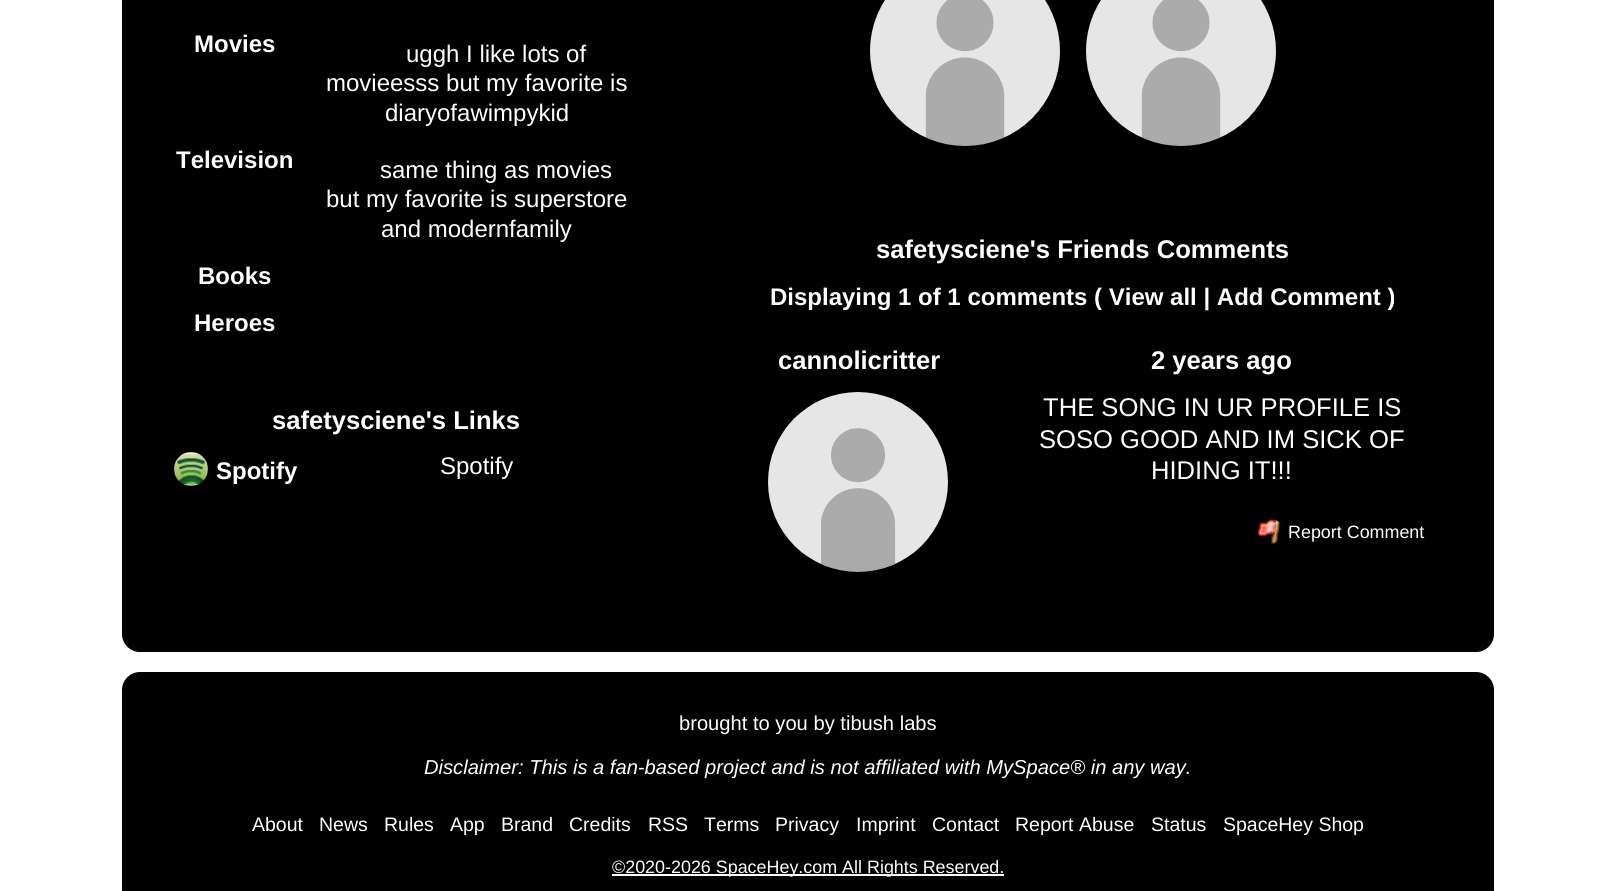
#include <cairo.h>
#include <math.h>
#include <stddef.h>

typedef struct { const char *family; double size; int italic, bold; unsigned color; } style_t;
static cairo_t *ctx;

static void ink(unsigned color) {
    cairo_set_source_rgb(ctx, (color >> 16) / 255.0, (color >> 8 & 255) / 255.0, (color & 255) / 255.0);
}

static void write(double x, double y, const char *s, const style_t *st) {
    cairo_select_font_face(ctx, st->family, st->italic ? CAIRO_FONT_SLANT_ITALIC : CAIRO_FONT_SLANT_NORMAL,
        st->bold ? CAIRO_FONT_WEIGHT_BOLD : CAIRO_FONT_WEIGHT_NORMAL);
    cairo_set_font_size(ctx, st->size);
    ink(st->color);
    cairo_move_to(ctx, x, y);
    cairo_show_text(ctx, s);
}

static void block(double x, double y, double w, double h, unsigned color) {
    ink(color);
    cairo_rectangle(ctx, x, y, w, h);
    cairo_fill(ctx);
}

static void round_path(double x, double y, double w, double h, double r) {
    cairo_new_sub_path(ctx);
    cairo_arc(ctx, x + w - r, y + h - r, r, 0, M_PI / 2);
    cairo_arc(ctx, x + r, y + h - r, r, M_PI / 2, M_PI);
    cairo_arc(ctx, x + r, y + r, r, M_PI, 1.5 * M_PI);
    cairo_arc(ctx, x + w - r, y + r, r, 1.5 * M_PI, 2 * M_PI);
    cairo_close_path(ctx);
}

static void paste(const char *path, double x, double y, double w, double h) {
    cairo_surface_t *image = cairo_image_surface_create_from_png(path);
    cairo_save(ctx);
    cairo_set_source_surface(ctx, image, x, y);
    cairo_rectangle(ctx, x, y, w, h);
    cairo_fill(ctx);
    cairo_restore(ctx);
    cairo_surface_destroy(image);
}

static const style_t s1 = {"Liberation Sans", 24, 0, 1, 0xffffff};
static const style_t s2 = {"Liberation Sans", 24, 0, 0, 0xffffff};
static const style_t s3 = {"Liberation Sans", 25.6, 0, 1, 0xffffff};
static const style_t s4 = {"Liberation Sans", 25.6, 0, 0, 0xffffff};
static const style_t s5 = {"Liberation Sans", 17.9, 0, 0, 0xffffff};
static const style_t s6 = {"Liberation Sans", 20.15, 0, 0, 0xffffff};
static const style_t s7 = {"Liberation Sans", 20.15, 1, 0, 0xffffff};
static const style_t s8 = {"Liberation Sans", 19.5, 0, 0, 0xffffff};

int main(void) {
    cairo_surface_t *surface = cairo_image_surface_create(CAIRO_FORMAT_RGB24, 1615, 891);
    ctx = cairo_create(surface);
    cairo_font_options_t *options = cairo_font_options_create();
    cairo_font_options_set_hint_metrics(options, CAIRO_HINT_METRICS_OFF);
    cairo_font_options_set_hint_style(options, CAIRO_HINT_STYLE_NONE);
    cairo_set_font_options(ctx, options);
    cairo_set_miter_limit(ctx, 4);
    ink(0xffffff);
    cairo_paint(ctx);
    ink(0x000000);
    round_path(122, -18, 1372, 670, 18);
    cairo_fill(ctx);
    write(194, 52, "Movies", &s1);
    write(406, 62, "uggh I like lots of", &s2);
    write(326, 91, "movieesss but my favorite is", &s2);
    write(385, 121, "diaryofawimpykid", &s2);
    write(176, 168, "Television", &s1);
    write(380, 178, "same thing as movies", &s2);
    write(326, 207, "but my favorite is superstore", &s2);
    write(381, 237, "and modernfamily", &s2);
    write(198, 284, "Books", &s1);
    write(194, 331, "Heroes", &s1);
    write(272, 429, "safetysciene's Links", &s3);
    paste("pic1.png", 174, 452, 34, 34);
    write(216, 479, "Spotify", &s1);
    write(440, 474, "Spotify", &s2);
    paste("pic2.png", 870, 0, 190, 146);
    paste("pic3.png", 1086, 0, 190, 146);
    write(876, 258, "safetysciene's Friends Comments", &s3);
    write(770, 305, "Displaying 1 of 1 comments ( View all | Add Comment )", &s1);
    write(778, 369, "cannolicritter", &s3);
    paste("pic4.png", 768, 392, 180, 180);
    write(1151, 369, "2 years ago", &s3);
    write(1043, 416, "THE SONG IN UR PROFILE IS", &s4);
    write(1039, 448, "SOSO GOOD AND IM SICK OF", &s4);
    write(1151, 479, "HIDING IT!!!", &s4);
    paste("pic5.png", 1258, 519, 23, 25);
    write(1288, 538, "Report Comment", &s5);
    ink(0x000000);
    round_path(122, 672, 1372, 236, 18);
    cairo_fill(ctx);
    write(679, 730, "brought to you by tibush labs", &s6);
    write(424, 774, "Disclaimer: This is a fan-based project and is not affiliated with MySpace® in any way.", &s7);
    write(252, 831, "About", &s8);
    write(319, 831, "News", &s8);
    write(384, 831, "Rules", &s8);
    write(450, 831, "App", &s8);
    write(501, 831, "Brand", &s8);
    write(569, 831, "Credits", &s8);
    write(648, 831, "RSS", &s8);
    write(704, 831, "Terms", &s8);
    write(775, 831, "Privacy", &s8);
    write(856, 831, "Imprint", &s8);
    write(932, 831, "Contact", &s8);
    write(1015, 831, "Report Abuse", &s8);
    write(1151, 831, "Status", &s8);
    write(1223, 831, "SpaceHey Shop", &s8);
    block(612, 874, 392, 2, 0xffffff);
    write(612, 873, "©2020-2026 SpaceHey.com All Rights Reserved.", &s5);
    cairo_surface_write_to_png(surface, "screenshot.png");
    cairo_font_options_destroy(options);
    cairo_destroy(ctx);
    cairo_surface_destroy(surface);
    return 0;
}
